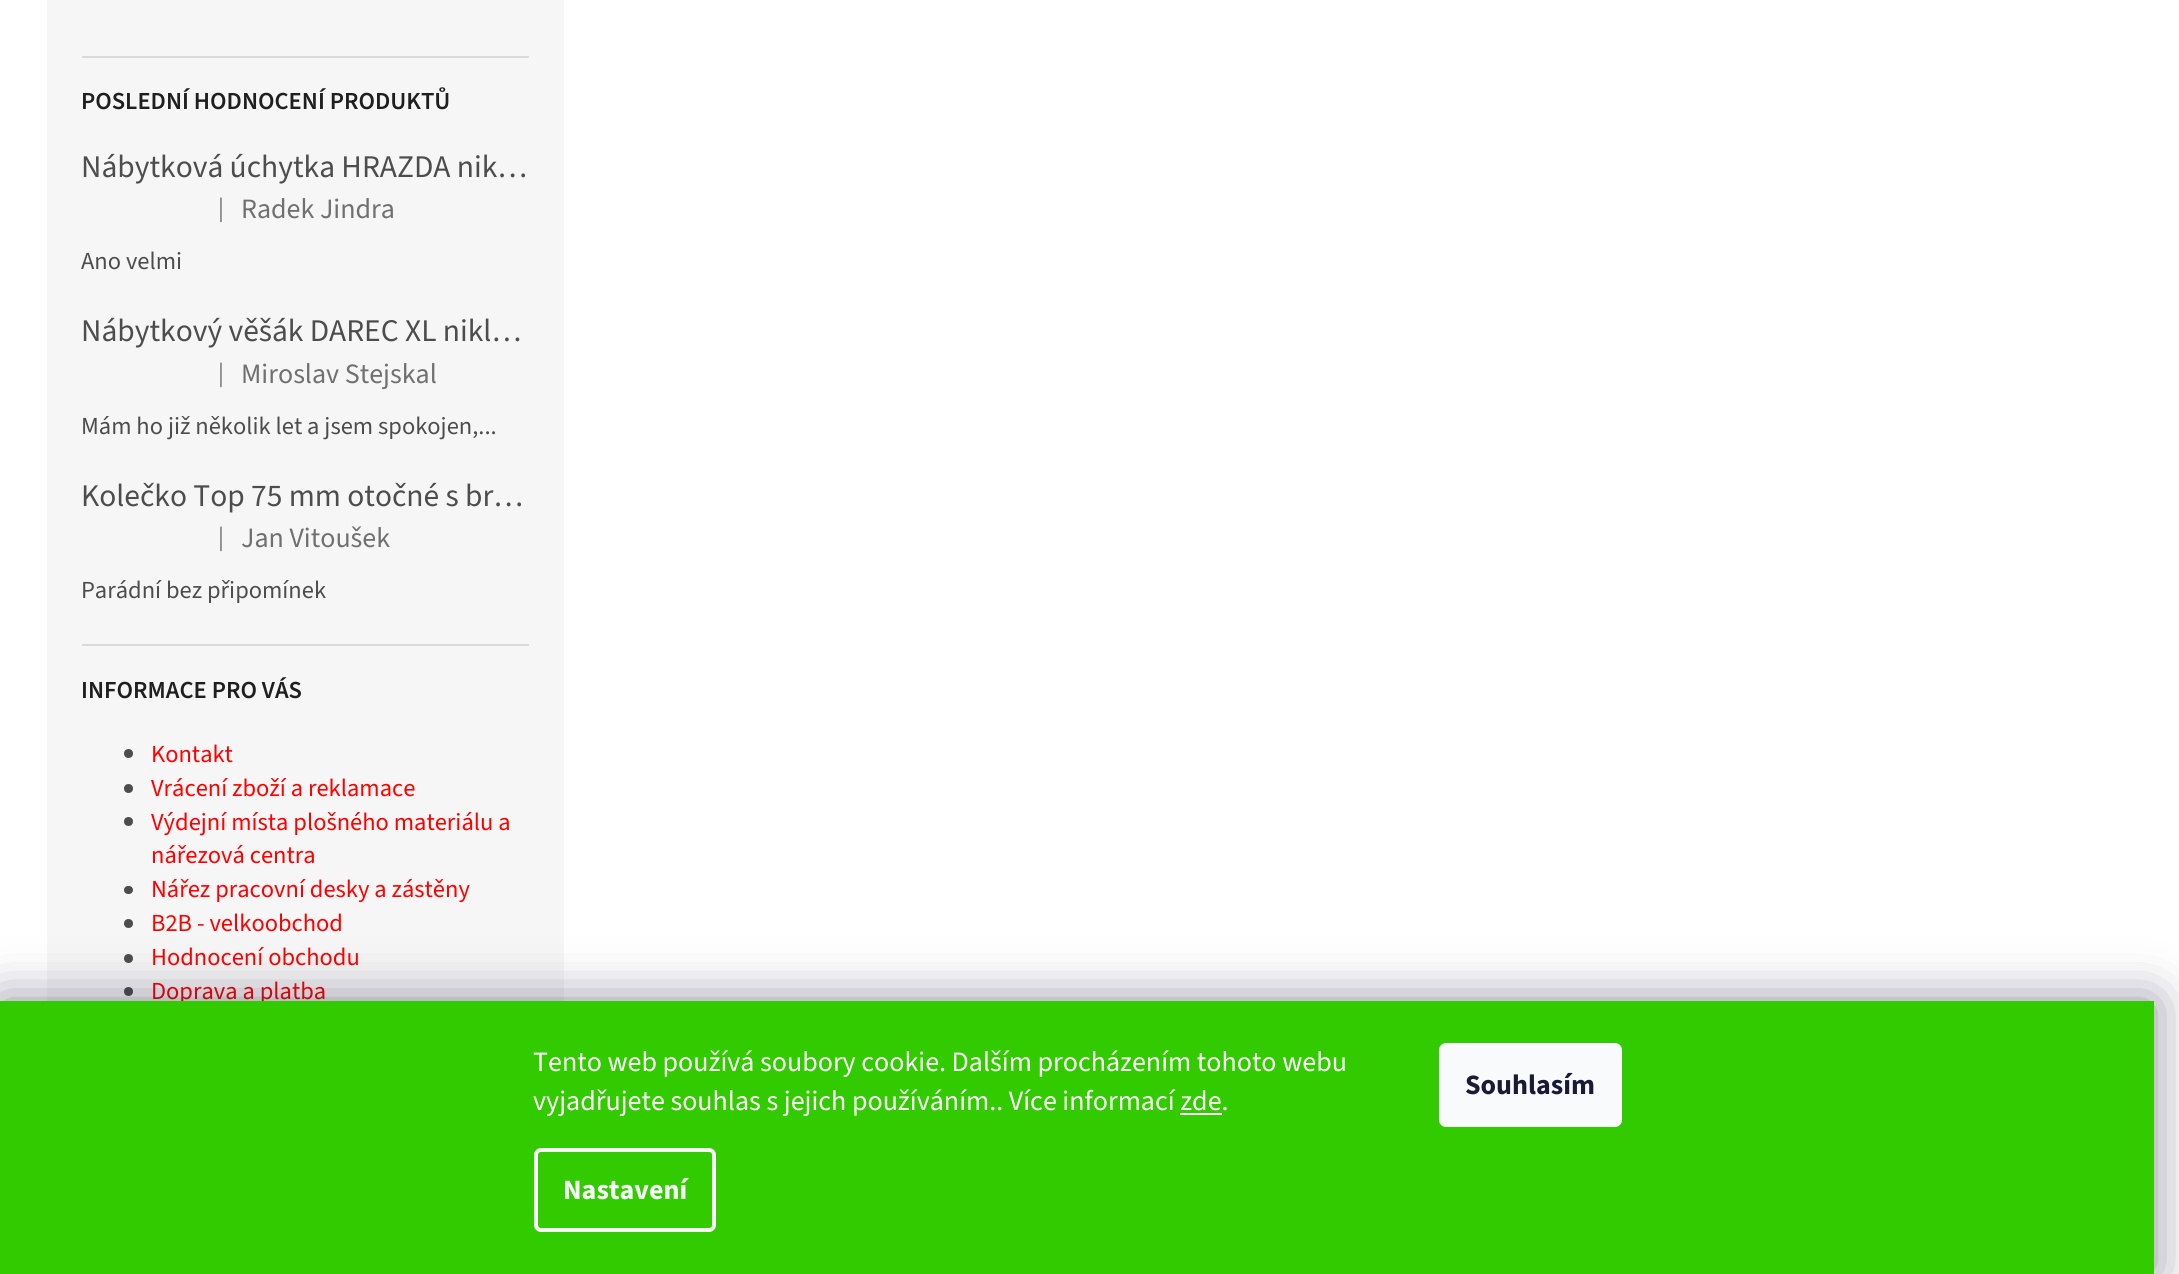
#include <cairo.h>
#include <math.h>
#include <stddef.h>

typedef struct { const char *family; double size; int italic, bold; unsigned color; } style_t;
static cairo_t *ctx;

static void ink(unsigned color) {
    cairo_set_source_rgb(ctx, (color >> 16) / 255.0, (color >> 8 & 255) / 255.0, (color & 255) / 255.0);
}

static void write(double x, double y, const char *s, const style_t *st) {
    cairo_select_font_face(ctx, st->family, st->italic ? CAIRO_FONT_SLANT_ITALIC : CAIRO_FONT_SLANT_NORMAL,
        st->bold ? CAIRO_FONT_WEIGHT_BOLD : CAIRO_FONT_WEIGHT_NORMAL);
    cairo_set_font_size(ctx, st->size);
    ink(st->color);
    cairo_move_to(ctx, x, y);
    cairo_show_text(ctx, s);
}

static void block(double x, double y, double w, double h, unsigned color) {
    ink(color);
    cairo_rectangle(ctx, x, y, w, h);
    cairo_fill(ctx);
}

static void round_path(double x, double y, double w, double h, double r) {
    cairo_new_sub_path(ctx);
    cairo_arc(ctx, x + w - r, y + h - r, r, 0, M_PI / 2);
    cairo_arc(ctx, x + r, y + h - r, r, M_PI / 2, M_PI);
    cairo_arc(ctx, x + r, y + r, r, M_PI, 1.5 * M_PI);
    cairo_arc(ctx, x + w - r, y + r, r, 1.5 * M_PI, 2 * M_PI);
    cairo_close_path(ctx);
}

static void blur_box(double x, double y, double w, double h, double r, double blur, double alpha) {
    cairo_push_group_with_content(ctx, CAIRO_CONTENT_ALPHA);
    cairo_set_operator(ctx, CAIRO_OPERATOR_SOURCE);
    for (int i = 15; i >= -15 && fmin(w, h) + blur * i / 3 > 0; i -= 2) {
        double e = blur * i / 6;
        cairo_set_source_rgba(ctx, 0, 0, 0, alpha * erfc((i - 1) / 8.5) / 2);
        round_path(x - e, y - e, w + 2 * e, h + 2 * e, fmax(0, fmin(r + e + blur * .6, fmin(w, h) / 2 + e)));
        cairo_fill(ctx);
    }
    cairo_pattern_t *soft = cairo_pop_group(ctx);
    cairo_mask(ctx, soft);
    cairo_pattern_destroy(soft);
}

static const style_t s1 = {"Source Sans 3 SemiBold", 24.5, 0, 0, 0x1f1f1f};
static const style_t s2 = {"Source Sans 3", 31.5, 0, 0, 0x4d4d4d};
static const style_t s3 = {"Source Sans 3", 24.5, 0, 0, 0x707070};
static const style_t s4 = {"Source Sans 3", 28, 0, 0, 0x707070};
static const style_t s5 = {"Source Sans 3", 24.5, 0, 0, 0x4d4d4d};
static const style_t s6 = {"Source Sans 3", 24.5, 0, 0, 0xfe0000};
static const style_t s7 = {"Source Sans 3", 28, 0, 0, 0xffffff};
static const style_t s8 = {"Source Sans 3", 28, 0, 1, 0xf8fafb};
static const style_t s9 = {"Source Sans 3", 28, 0, 1, 0x1a1937};

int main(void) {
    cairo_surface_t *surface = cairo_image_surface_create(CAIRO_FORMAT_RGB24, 2179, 1274);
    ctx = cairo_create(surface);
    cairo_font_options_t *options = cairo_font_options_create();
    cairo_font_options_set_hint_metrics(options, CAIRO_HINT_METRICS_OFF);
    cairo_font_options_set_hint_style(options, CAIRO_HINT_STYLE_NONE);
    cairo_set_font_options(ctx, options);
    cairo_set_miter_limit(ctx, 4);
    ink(0xffffff);
    cairo_paint(ctx);
    block(47, 0, 517, 1001, 0xf6f6f6);
    block(82, 56, 447, 2, 0xdadada);
    block(82, 644, 447, 2, 0xdadada);
    write(81, 109, "POSLEDNÍ HODNOCENÍ PRODUKTŮ", &s1);
    write(81, 177, "Nábytková úchytka HRAZDA nik…", &s2);
    write(218, 216, "|", &s3);
    write(241, 218, "Radek Jindra", &s4);
    write(81, 269, "Ano velmi", &s5);
    write(81, 341, "Nábytkový věšák DAREC XL nikl…", &s2);
    write(218, 381, "|", &s3);
    write(241, 383, "Miroslav Stejskal", &s4);
    write(81, 434, "Mám ho již několik let a jsem spokojen,...", &s5);
    write(81, 506, "Kolečko Top 75 mm otočné s br…", &s2);
    write(218, 545, "|", &s3);
    write(241, 547, "Jan Vitoušek", &s4);
    write(81, 598, "Parádní bez připomínek", &s5);
    write(81, 698, "INFORMACE PRO VÁS", &s1);
    ink(0x4d4d4d);
    cairo_new_path(ctx);
    cairo_arc(ctx, 128.5, 753.5, 4.5, 0, 2 * M_PI);
    cairo_fill(ctx);
    write(151, 762, "Kontakt", &s6);
    ink(0x4d4d4d);
    cairo_new_path(ctx);
    cairo_arc(ctx, 128.5, 788.5, 4.5, 0, 2 * M_PI);
    cairo_fill(ctx);
    write(151, 796, "Vrácení zboží a reklamace", &s6);
    ink(0x4d4d4d);
    cairo_new_path(ctx);
    cairo_arc(ctx, 128.5, 821.5, 4.5, 0, 2 * M_PI);
    cairo_fill(ctx);
    write(151, 830, "Výdejní místa plošného materiálu a", &s6);
    write(151, 863, "nářezová centra", &s6);
    ink(0x4d4d4d);
    round_path(124, 886, 9, 8, 4);
    cairo_fill(ctx);
    write(151, 897, "Nářez pracovní desky a zástěny", &s6);
    ink(0x4d4d4d);
    cairo_new_path(ctx);
    cairo_arc(ctx, 128.5, 923.5, 4.5, 0, 2 * M_PI);
    cairo_fill(ctx);
    write(151, 931, "B2B - velkoobchod", &s6);
    ink(0x4d4d4d);
    cairo_new_path(ctx);
    cairo_arc(ctx, 128.5, 958.5, 4.5, 0, 2 * M_PI);
    cairo_fill(ctx);
    write(151, 965, "Hodnocení obchodu", &s6);
    ink(0x4d4d4d);
    cairo_new_path(ctx);
    cairo_arc(ctx, 128.5, 991.5, 4.5, 0, 2 * M_PI);
    cairo_fill(ctx);
    write(151, 999, "Doprava a platba", &s6);
    ink(0x1b1939);
    blur_box(0, 1001, 2154, 273, 0, 26, 0.5);
    block(0, 1001, 2154, 273, 0x32cb00);
    write(533, 1071, "Tento web používá soubory cookie. Dalším procházením tohoto webu", &s7);
    write(533, 1110, "vyjadřujete souhlas s jejich používáním.. Více informací zde.", &s7);
    block(1180, 1113, 42, 2, 0xffffff);
    round_path(536, 1150, 178, 80, 5);
    ink(0xf8fafb);
    cairo_set_line_width(ctx, 4);
    cairo_stroke(ctx);
    write(563, 1199, "Nastavení", &s8);
    round_path(1439, 1043, 183, 84, 7);
    cairo_fill(ctx);
    write(1465, 1094, "Souhlasím", &s9);
    cairo_surface_write_to_png(surface, "screenshot.png");
    cairo_font_options_destroy(options);
    cairo_destroy(ctx);
    cairo_surface_destroy(surface);
    return 0;
}
